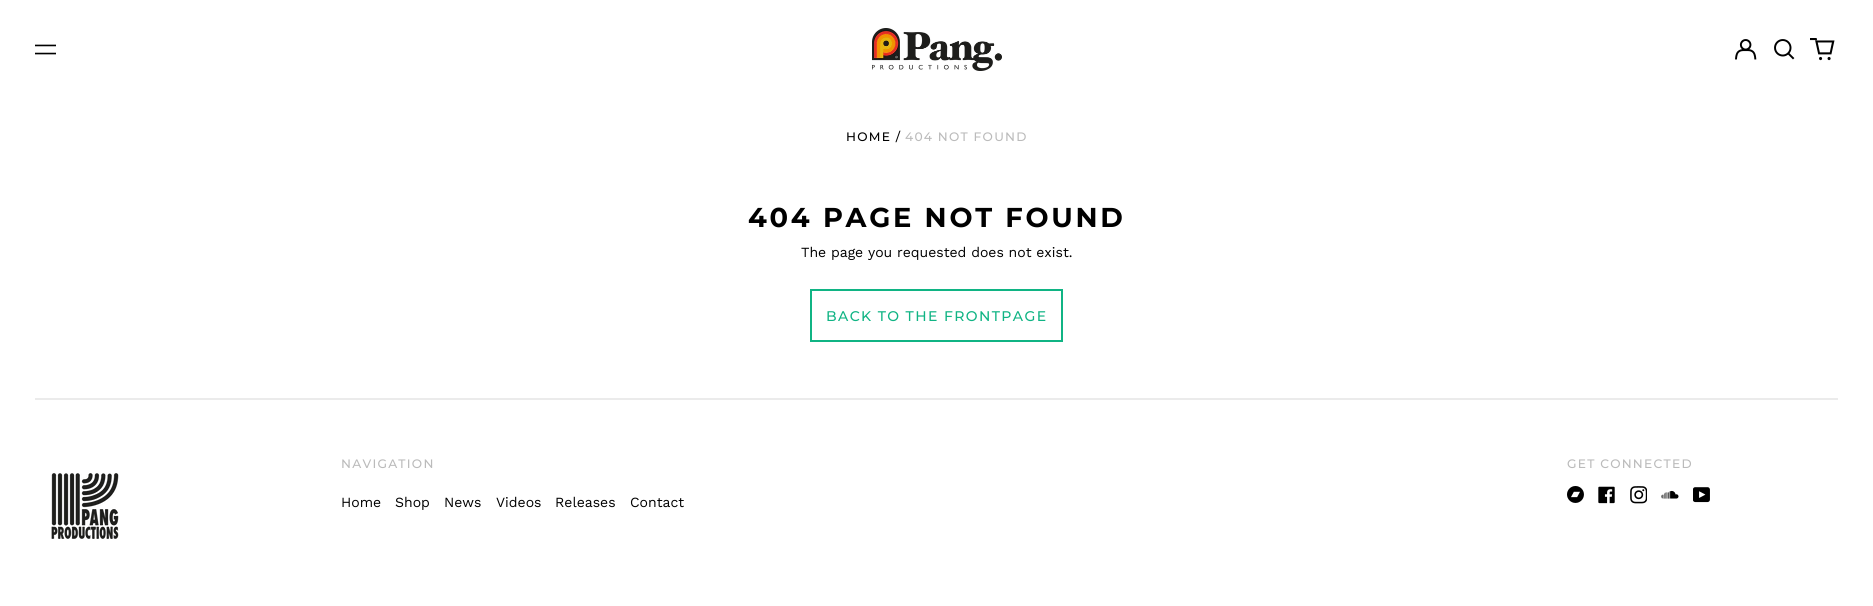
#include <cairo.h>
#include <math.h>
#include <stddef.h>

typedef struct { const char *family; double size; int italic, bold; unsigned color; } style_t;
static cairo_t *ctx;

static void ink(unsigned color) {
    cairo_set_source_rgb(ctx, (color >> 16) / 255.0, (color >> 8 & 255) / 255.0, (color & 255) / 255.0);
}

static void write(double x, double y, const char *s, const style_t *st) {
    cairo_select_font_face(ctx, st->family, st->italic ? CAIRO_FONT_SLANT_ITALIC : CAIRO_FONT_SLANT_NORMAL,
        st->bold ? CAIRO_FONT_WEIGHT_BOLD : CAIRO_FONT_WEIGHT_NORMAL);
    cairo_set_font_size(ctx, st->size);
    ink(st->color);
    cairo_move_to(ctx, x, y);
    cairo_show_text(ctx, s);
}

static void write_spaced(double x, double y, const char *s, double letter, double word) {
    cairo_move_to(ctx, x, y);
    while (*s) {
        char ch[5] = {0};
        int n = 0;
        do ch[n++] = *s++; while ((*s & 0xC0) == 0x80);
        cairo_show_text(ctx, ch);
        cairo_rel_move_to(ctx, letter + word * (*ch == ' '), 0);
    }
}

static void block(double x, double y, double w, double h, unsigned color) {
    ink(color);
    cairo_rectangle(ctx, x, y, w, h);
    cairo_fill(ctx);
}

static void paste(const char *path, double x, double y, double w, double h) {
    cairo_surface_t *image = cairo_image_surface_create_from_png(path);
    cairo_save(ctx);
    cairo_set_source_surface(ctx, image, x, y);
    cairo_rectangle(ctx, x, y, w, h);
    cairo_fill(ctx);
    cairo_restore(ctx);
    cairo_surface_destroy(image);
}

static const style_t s1 = {"Work Sans", 14, 0, 0, 0x000000};

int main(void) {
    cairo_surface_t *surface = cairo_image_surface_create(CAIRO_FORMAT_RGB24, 1873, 606);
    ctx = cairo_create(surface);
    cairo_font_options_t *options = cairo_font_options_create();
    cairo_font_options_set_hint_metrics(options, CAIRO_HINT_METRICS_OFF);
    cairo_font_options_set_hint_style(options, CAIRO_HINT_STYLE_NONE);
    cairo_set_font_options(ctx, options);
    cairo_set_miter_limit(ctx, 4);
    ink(0xffffff);
    cairo_paint(ctx);
    paste("pic1.png", 35, 44, 21, 11);
    paste("pic2.png", 872, 28, 130, 43);
    paste("pic3.png", 1735, 39, 22, 21);
    paste("pic4.png", 1774, 39, 21, 21);
    paste("pic5.png", 1810, 38, 25, 23);
    cairo_select_font_face(ctx, "Montserrat Medium", CAIRO_FONT_SLANT_NORMAL, CAIRO_FONT_WEIGHT_NORMAL);
    cairo_set_font_size(ctx, 12.25);
    ink(0x000000);
    write_spaced(846, 141, "HOME /", 1.25, 0);
    ink(0xbbbbbb);
    write_spaced(905, 141, "404 NOT FOUND", 1.25, 0);
    cairo_select_font_face(ctx, "Montserrat", CAIRO_FONT_SLANT_NORMAL, CAIRO_FONT_WEIGHT_BOLD);
    cairo_set_font_size(ctx, 27.3);
    ink(0x000000);
    write_spaced(748, 227, "404 PAGE NOT FOUND", 2.75, 0);
    write(801, 257, "The page you requested does not exist.", &s1);
    cairo_rectangle(ctx, 811, 290, 251, 51);
    ink(0x10b484);
    cairo_stroke(ctx);
    cairo_select_font_face(ctx, "Montserrat Medium", CAIRO_FONT_SLANT_NORMAL, CAIRO_FONT_WEIGHT_NORMAL);
    write_spaced(826, 321, "BACK TO THE FRONTPAGE", 1.4, 0);
    block(35, 398, 1803, 2, 0xebebeb);
    cairo_set_font_size(ctx, 12.25);
    ink(0xbbbbbb);
    write_spaced(341, 468, "NAVIGATION", 1.25, 0);
    write(341, 507, "Home", &s1);
    write(395, 507, "Shop", &s1);
    write(444, 507, "News", &s1);
    write(496, 507, "Videos", &s1);
    write(555, 507, "Releases", &s1);
    write(630, 507, "Contact", &s1);
    cairo_select_font_face(ctx, "Montserrat Medium", CAIRO_FONT_SLANT_NORMAL, CAIRO_FONT_WEIGHT_NORMAL);
    cairo_set_font_size(ctx, 12.25);
    ink(0xbbbbbb);
    write_spaced(1567, 468, "GET CONNECTED", 1.25, 0);
    paste("pic6.png", 1567, 486, 17, 17);
    paste("pic7.png", 1598, 486, 17, 18);
    paste("pic8.png", 1630, 486, 17, 18);
    paste("pic9.png", 1661, 490, 18, 9);
    paste("pic10.png", 1693, 487, 17, 16);
    paste("pic11.png", 51, 473, 68, 66);
    cairo_surface_write_to_png(surface, "screenshot.png");
    cairo_font_options_destroy(options);
    cairo_destroy(ctx);
    cairo_surface_destroy(surface);
    return 0;
}
